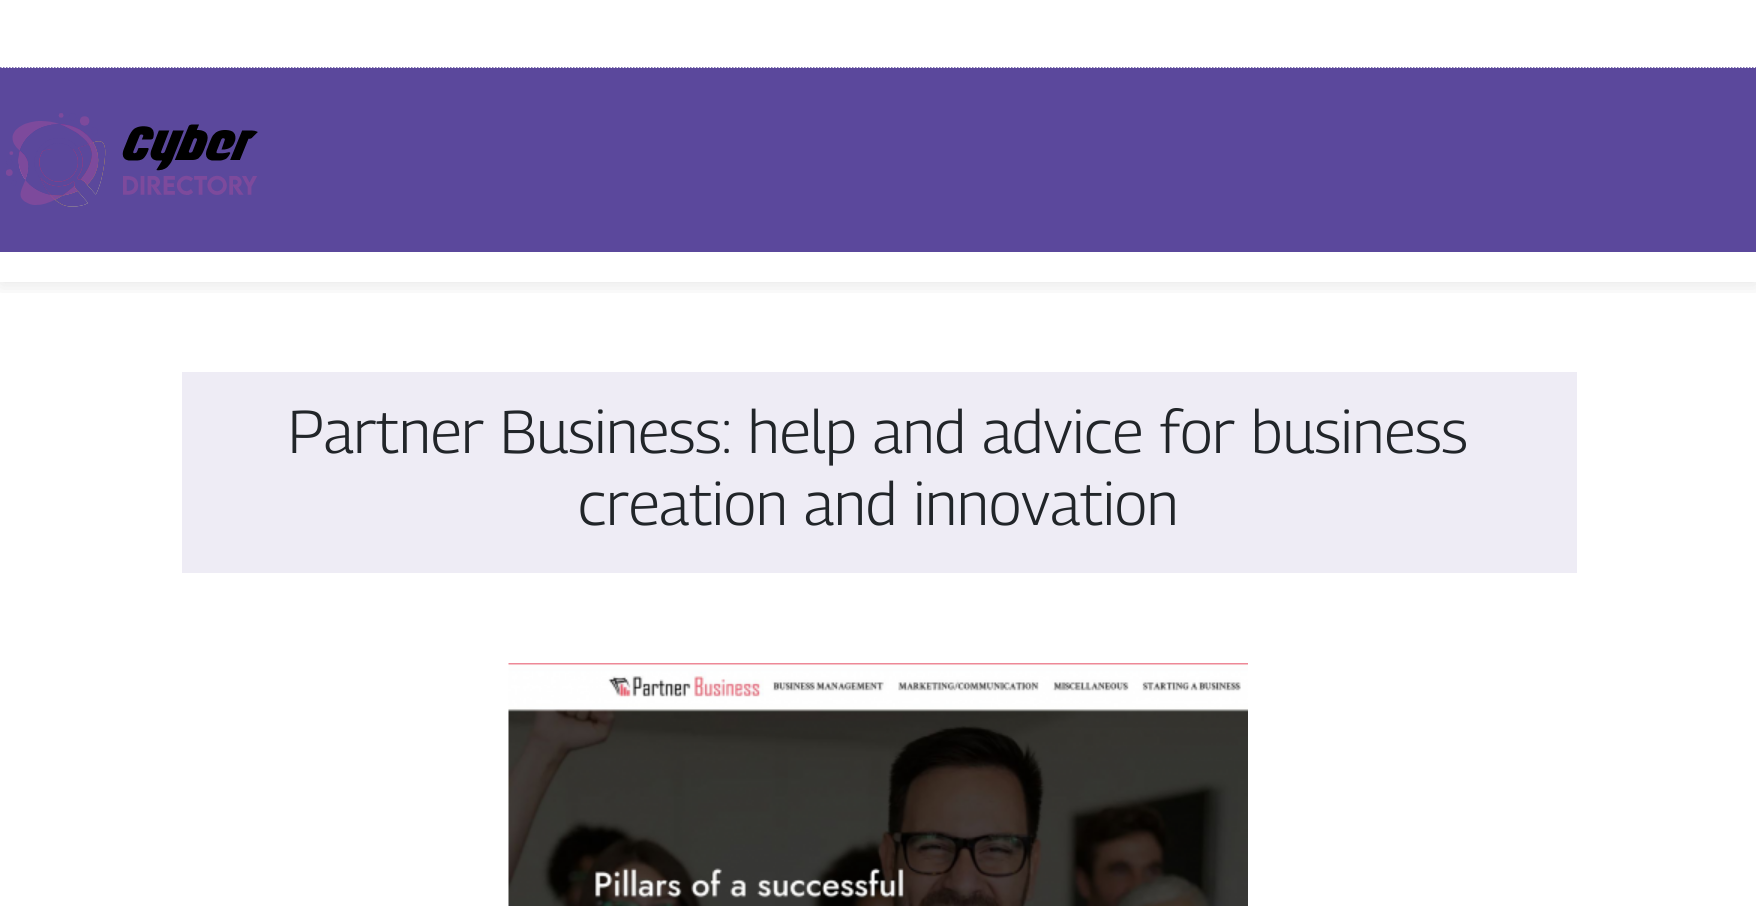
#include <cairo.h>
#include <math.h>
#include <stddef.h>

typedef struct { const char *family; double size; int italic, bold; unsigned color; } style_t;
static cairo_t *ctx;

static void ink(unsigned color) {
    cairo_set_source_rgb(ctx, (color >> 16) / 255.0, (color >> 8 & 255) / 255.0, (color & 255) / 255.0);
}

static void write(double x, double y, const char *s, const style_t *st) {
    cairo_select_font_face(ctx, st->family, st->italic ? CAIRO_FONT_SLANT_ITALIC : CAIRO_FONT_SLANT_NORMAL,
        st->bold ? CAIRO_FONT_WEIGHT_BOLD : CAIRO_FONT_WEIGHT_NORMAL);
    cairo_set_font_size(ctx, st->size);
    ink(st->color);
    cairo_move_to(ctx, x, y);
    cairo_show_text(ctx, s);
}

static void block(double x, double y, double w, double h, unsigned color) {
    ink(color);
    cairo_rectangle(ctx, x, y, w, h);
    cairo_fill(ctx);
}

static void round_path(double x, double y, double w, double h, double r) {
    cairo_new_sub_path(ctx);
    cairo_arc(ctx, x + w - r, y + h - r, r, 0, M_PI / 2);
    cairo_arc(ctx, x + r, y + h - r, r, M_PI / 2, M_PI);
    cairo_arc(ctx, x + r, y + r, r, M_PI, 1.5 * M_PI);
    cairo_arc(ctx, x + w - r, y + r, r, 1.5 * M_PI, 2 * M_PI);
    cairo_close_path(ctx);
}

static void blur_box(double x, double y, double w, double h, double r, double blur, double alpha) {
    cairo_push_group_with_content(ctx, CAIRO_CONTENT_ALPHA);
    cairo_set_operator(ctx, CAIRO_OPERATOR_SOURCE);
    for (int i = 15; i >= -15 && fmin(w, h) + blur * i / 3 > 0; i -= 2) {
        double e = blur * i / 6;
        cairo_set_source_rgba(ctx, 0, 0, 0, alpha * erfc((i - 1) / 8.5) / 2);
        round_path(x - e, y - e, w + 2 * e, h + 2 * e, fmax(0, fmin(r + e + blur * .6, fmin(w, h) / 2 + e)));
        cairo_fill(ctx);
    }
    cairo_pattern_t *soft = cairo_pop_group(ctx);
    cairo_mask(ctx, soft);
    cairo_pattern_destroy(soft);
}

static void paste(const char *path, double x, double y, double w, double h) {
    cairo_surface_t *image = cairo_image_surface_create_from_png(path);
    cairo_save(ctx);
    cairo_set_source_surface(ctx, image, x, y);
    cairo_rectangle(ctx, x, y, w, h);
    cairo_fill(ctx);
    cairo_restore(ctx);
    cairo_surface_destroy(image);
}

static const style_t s1 = {"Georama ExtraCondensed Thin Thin", 60, 0, 0, 0x212529};

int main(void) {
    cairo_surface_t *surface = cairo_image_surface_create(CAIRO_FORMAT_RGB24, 1756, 906);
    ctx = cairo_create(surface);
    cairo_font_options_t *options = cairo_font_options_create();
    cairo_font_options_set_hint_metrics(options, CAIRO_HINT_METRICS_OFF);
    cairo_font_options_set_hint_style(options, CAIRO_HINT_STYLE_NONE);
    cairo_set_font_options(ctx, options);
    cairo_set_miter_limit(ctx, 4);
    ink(0xffffff);
    cairo_paint(ctx);
    cairo_save(ctx);
    cairo_rectangle(ctx, 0, 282, 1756, 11);
    cairo_clip(ctx);
    ink(0x000000);
    blur_box(0, 3, 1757, 282, 0, 10, 0.1);
    cairo_restore(ctx);
    block(0, 68, 1756, 184, 0x5b489c);
    cairo_new_path(ctx);
    cairo_move_to(ctx, 0, 68);
    cairo_line_to(ctx, 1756.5, 68);
    cairo_set_line_width(ctx, 1.5);
    cairo_set_dash(ctx, (double[]){1.5, 1.5}, 2, 0);
    cairo_stroke(ctx);
    paste("pic1.png", 6, 113, 252, 94);
    block(182, 372, 1395, 201, 0xeeecf5);
    write(288, 453, "Partner Business: help and advice for business", &s1);
    write(578, 525, "creation and innovation", &s1);
    paste("pic2.png", 508, 663, 740, 243);
    cairo_surface_write_to_png(surface, "screenshot.png");
    cairo_font_options_destroy(options);
    cairo_destroy(ctx);
    cairo_surface_destroy(surface);
    return 0;
}
